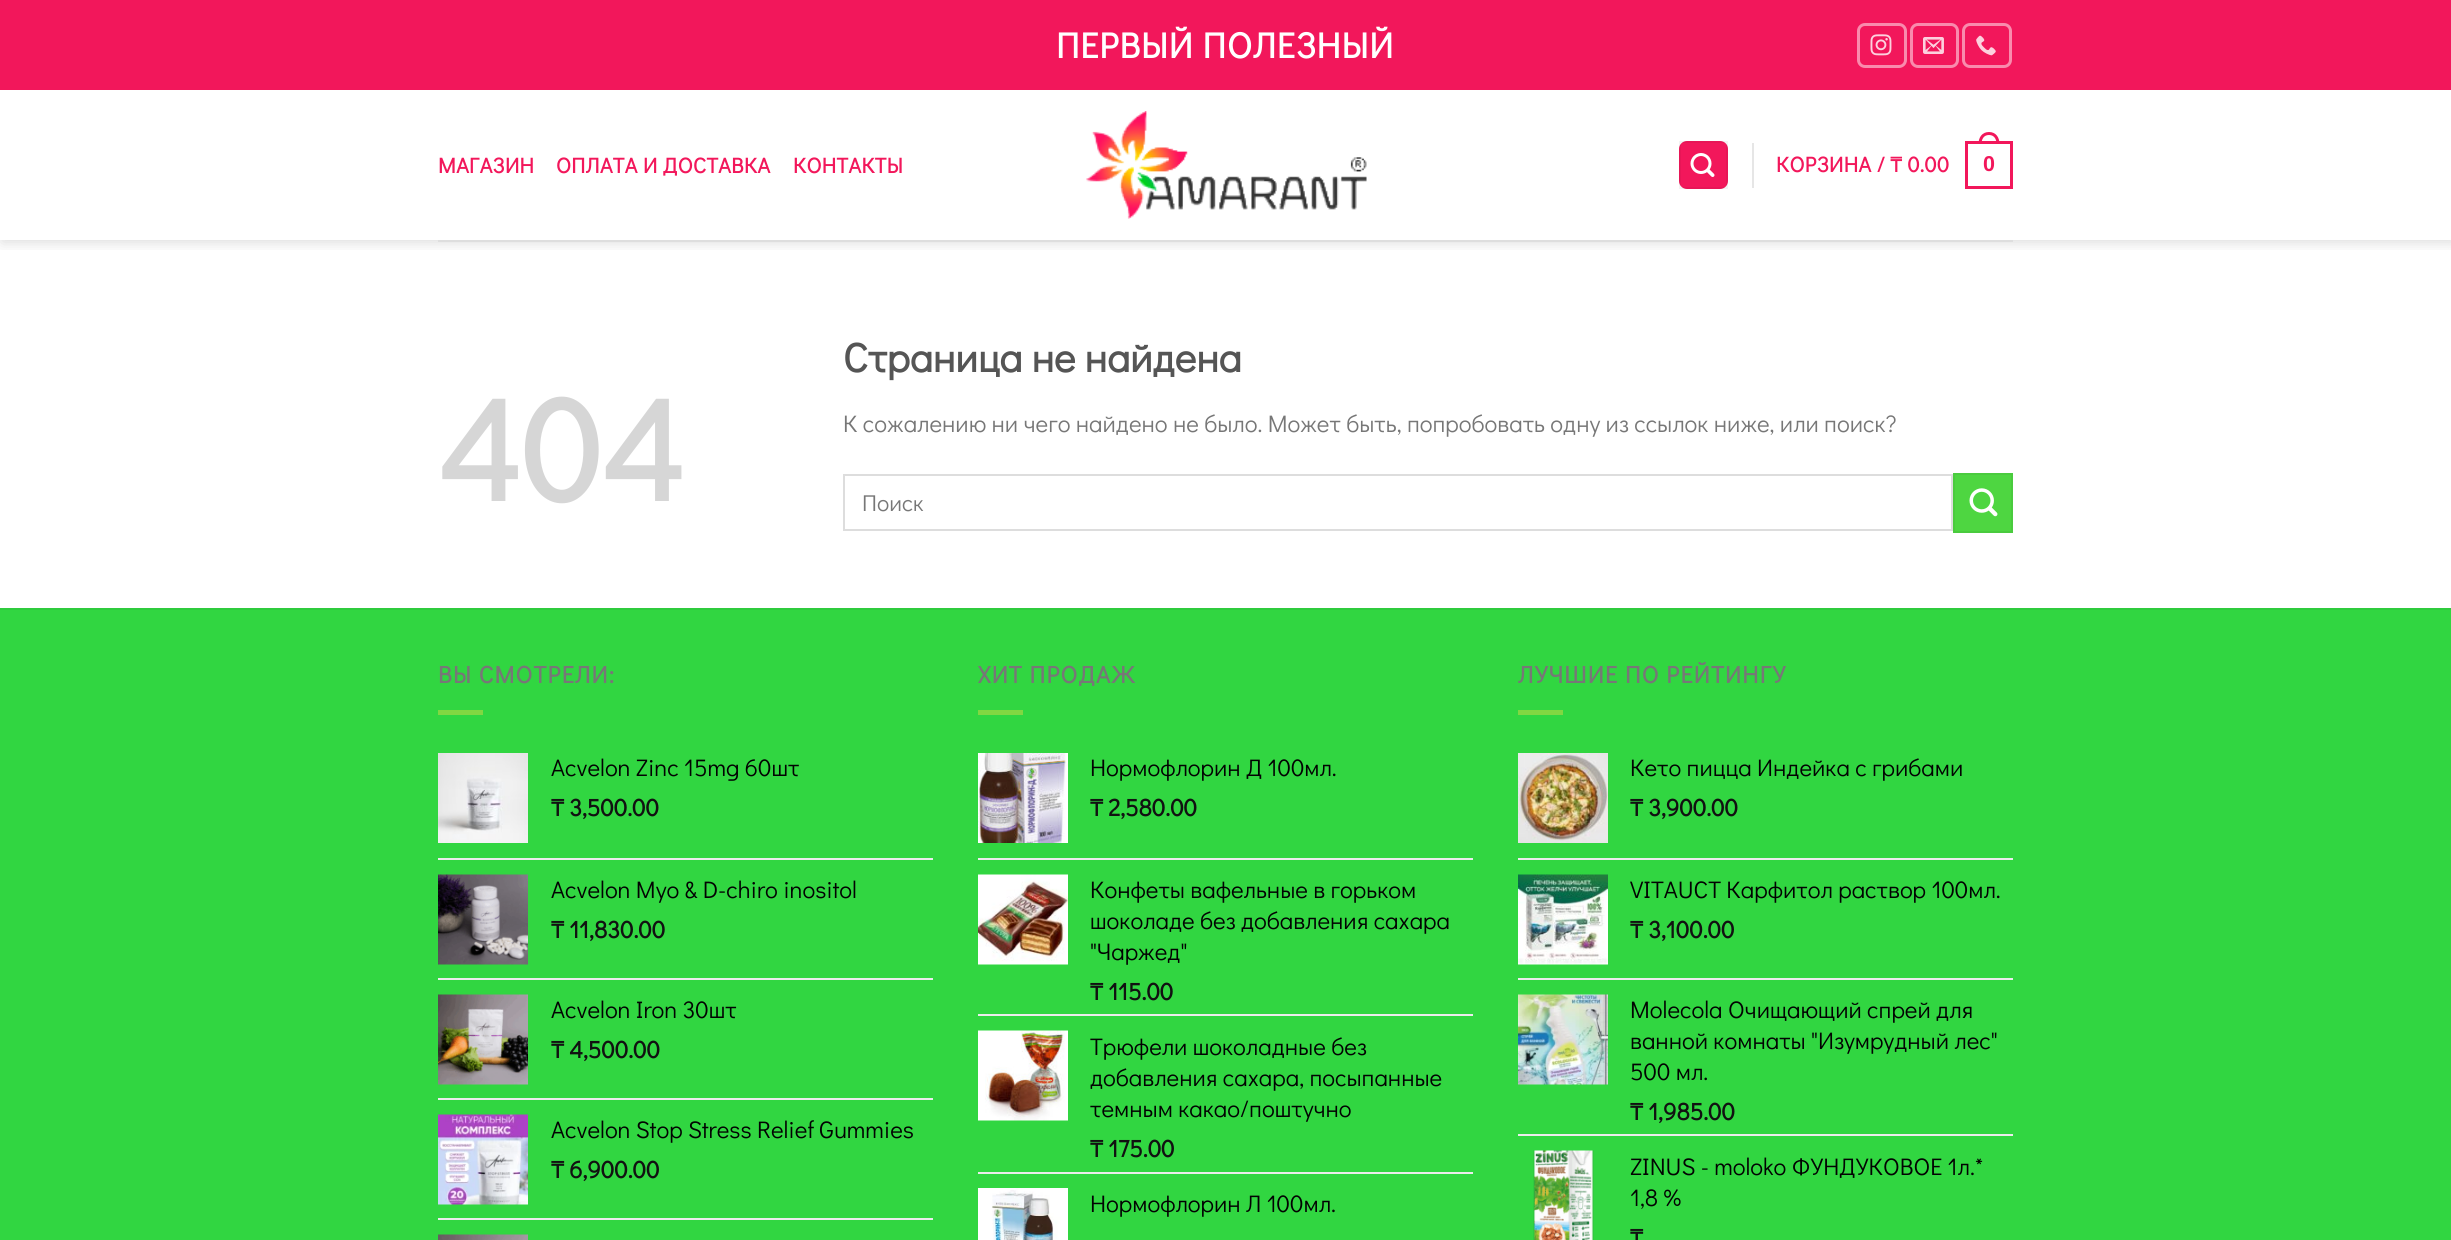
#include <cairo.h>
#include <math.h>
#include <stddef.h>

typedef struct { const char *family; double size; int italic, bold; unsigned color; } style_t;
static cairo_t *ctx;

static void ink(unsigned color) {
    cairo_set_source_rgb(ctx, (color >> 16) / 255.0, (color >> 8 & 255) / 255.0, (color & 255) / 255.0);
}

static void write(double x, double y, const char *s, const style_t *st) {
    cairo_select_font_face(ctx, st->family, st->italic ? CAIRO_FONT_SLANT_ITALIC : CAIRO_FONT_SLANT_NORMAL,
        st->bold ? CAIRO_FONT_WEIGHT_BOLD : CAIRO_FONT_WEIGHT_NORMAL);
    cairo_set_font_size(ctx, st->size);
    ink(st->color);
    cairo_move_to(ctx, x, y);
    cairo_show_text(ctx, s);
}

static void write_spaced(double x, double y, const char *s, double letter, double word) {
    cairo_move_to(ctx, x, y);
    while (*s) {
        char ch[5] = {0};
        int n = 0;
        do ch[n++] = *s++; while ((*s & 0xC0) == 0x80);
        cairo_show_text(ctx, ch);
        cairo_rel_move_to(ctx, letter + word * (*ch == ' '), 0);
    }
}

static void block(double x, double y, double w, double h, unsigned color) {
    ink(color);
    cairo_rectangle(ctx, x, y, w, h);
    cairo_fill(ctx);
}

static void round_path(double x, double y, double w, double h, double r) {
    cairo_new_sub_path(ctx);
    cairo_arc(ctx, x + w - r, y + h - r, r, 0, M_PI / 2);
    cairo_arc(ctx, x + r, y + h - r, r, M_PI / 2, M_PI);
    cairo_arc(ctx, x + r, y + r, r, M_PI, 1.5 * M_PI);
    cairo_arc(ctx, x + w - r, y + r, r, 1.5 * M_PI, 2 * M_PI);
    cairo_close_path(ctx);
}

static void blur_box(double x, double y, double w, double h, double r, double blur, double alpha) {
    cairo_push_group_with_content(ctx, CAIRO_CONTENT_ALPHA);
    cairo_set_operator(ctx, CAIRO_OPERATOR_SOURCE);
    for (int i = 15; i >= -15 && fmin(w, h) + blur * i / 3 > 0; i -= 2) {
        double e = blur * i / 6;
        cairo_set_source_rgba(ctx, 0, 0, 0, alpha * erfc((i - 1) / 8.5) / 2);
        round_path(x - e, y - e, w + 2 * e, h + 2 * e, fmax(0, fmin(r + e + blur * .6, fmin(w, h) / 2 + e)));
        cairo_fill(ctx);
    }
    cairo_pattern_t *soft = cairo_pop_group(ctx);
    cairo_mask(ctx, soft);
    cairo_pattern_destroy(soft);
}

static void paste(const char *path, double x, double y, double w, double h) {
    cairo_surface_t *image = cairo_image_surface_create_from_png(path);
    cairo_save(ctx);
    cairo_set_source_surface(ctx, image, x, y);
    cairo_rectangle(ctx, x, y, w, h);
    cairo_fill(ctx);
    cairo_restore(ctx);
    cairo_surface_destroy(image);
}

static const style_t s1 = {"Didact Gothic", 144, 0, 1, 0xd6d6d6};
static const style_t s2 = {"Didact Gothic", 40.75, 0, 1, 0x555555};
static const style_t s3 = {"Didact Gothic", 24, 0, 0, 0x777777};
static const style_t s4 = {"Didact Gothic", 23, 0, 0, 0x777777};
static const style_t s5 = {"Didact Gothic", 24, 0, 0, 0x020202};
static const style_t s6 = {"Didact Gothic", 24, 0, 1, 0x111111};

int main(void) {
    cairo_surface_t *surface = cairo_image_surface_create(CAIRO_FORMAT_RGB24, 2451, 1240);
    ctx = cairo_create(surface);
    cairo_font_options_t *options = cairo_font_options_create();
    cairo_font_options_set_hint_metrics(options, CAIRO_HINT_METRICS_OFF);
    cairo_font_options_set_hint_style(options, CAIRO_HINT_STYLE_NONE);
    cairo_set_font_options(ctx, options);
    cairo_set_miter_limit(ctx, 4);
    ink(0xffffff);
    cairo_paint(ctx);
    cairo_save(ctx);
    cairo_rectangle(ctx, 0, 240, 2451, 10);
    cairo_clip(ctx);
    ink(0x000000);
    blur_box(2, 2, 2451, 240, 0, 7.5, 0.15);
    cairo_restore(ctx);
    block(0, 0, 2451, 90, 0xf2175b);
    cairo_select_font_face(ctx, "Didact Gothic", CAIRO_FONT_SLANT_NORMAL, CAIRO_FONT_WEIGHT_BOLD);
    cairo_set_font_size(ctx, 36);
    ink(0xffffff);
    write_spaced(1056, 58, "ПЕРВЫЙ ПОЛЕЗНЫЙ", 0.9, 0);
    round_path(1858.5, 24.5, 47, 42, 6.5);
    ink(0xf98bad);
    cairo_set_line_width(ctx, 3);
    cairo_stroke(ctx);
    paste("pic1.png", 1870, 34, 22, 22);
    round_path(1911.5, 24.5, 46, 42, 6.5);
    cairo_stroke(ctx);
    paste("pic2.png", 1923, 37, 21, 17);
    round_path(1963.5, 24.5, 47, 42, 6.5);
    cairo_stroke(ctx);
    paste("pic3.png", 1976, 35, 20, 21);
    cairo_set_font_size(ctx, 21.5);
    ink(0xf2175b);
    write_spaced(438, 173, "МАГАЗИН", 0.4, 0);
    write_spaced(556, 173, "ОПЛАТА И ДОСТАВКА", 0.4, 0);
    write_spaced(793, 173, "КОНТАКТЫ", 0.4, 0);
    paste("pic4.png", 1086, 111, 281, 108);
    round_path(1679, 141, 49, 48, 8);
    cairo_fill(ctx);
    cairo_rectangle(ctx, 1680, 142, 47, 46);
    cairo_set_source_rgba(ctx, 0, 0, 0, 0.05);
    cairo_set_line_width(ctx, 2);
    cairo_stroke(ctx);
    paste("pic5.png", 1690, 153, 25, 24);
    block(1752, 143, 2, 45, 0xe6e6e6);
    ink(0xf2175b);
    write_spaced(1776, 172, "КОРЗИНА / ₸ 0.00", 0.4, 0);
    cairo_rectangle(ctx, 1966.5, 142.5, 45, 45);
    cairo_set_line_width(ctx, 3);
    cairo_stroke(ctx);
    cairo_set_fill_rule(ctx, CAIRO_FILL_RULE_EVEN_ODD);
    cairo_new_path(ctx);
    cairo_move_to(ctx, 1989, 132);
    cairo_curve_to(ctx, 1996, 132, 1999.5, 137.5, 1999.5, 144);
    cairo_line_to(ctx, 1978.5, 144);
    cairo_curve_to(ctx, 1978.5, 137.5, 1982, 132, 1989, 132);
    cairo_close_path(ctx);
    cairo_move_to(ctx, 1989, 135);
    cairo_curve_to(ctx, 1994.5, 135, 1996.5, 139.5, 1996.5, 144);
    cairo_line_to(ctx, 1981.5, 144);
    cairo_curve_to(ctx, 1981.5, 139.5, 1983.5, 135, 1989, 135);
    cairo_close_path(ctx);
    cairo_fill(ctx);
    cairo_select_font_face(ctx, "Liberation Sans", CAIRO_FONT_SLANT_NORMAL, CAIRO_FONT_WEIGHT_BOLD);
    write_spaced(1983, 171, "0", 0.4, 0);
    block(438, 240, 1575, 2, 0xdedede);
    write(438, 501, "404", &s1);
    write(843, 372, "Страница не найдена", &s2);
    write(843, 432, "К сожалению ни чего найдено не было. Может быть, попробовать одну из ссылок ниже, или поиск?", &s3);
    cairo_rectangle(ctx, 844, 475, 1108, 55);
    ink(0xdddddd);
    cairo_set_line_width(ctx, 2);
    cairo_stroke(ctx);
    write(862, 511, "Поиск", &s4);
    ink(0x4ed641);
    cairo_rectangle(ctx, 1954, 474, 58, 58);
    cairo_fill_preserve(ctx);
    ink(0x4acb3e);
    cairo_stroke(ctx);
    paste("pic6.png", 1969, 488, 29, 29);
    block(0, 610, 2451, 630, 0x31d641);
    block(0, 608, 2451, 2, 0x2fcb3e);
    cairo_select_font_face(ctx, "Didact Gothic", CAIRO_FONT_SLANT_NORMAL, CAIRO_FONT_WEIGHT_BOLD);
    cairo_set_font_size(ctx, 24);
    ink(0x777777);
    write_spaced(438, 683, "ВЫ СМОТРЕЛИ:", 1.25, 0);
    block(438, 710, 45, 5, 0x81d742);
    paste("pic7.png", 438, 753, 90, 90);
    write(551, 776, "Acvelon Zinc 15mg 60шт", &s5);
    write(551, 816, "₸ 3,500.00", &s6);
    block(438, 858, 495, 2, 0xececec);
    paste("pic8.png", 438, 874, 90, 91);
    write(551, 898, "Acvelon Myo & D-chiro inositol", &s5);
    write(551, 938, "₸ 11,830.00", &s6);
    block(438, 978, 495, 2, 0xececec);
    paste("pic9.png", 438, 994, 90, 91);
    write(551, 1018, "Acvelon Iron 30шт", &s5);
    write(551, 1058, "₸ 4,500.00", &s6);
    block(438, 1098, 495, 2, 0xececec);
    paste("pic10.png", 438, 1114, 90, 91);
    write(551, 1138, "Acvelon Stop Stress Relief Gummies", &s5);
    write(551, 1178, "₸ 6,900.00", &s6);
    block(438, 1218, 495, 2, 0xececec);
    paste("pic11.png", 438, 1234, 90, 6);
    ink(0x777777);
    write_spaced(978, 683, "ХИТ ПРОДАЖ", 1.25, 0);
    block(978, 710, 45, 5, 0x81d742);
    paste("pic12.png", 978, 753, 90, 90);
    write(1090, 776, "Нормофлорин Д 100мл.", &s5);
    write(1090, 816, "₸ 2,580.00", &s6);
    block(978, 858, 495, 2, 0xececec);
    paste("pic13.png", 978, 874, 90, 91);
    write(1090, 898, "Конфеты вафельные в горьком", &s5);
    write(1090, 929, "шоколаде без добавления сахара", &s5);
    write(1090, 960, "\"Чаржед\"", &s5);
    write(1090, 1000, "₸ 115.00", &s6);
    block(978, 1014, 495, 2, 0xececec);
    paste("pic14.png", 978, 1030, 90, 91);
    write(1090, 1055, "Трюфели шоколадные без", &s5);
    write(1090, 1086, "добавления сахара, посыпанные", &s5);
    write(1090, 1117, "темным какао/поштучно", &s5);
    write(1090, 1157, "₸ 175.00", &s6);
    block(978, 1172, 495, 2, 0xececec);
    paste("pic15.png", 978, 1188, 90, 52);
    write(1090, 1212, "Нормофлорин Л 100мл.", &s5);
    cairo_select_font_face(ctx, "Didact Gothic", CAIRO_FONT_SLANT_NORMAL, CAIRO_FONT_WEIGHT_BOLD);
    ink(0x777777);
    write_spaced(1518, 683, "ЛУЧШИЕ ПО РЕЙТИНГУ", 1.25, 0);
    block(1518, 710, 45, 5, 0x81d742);
    paste("pic16.png", 1518, 753, 90, 90);
    write(1630, 776, "Кето пицца Индейка с грибами", &s5);
    write(1630, 816, "₸ 3,900.00", &s6);
    block(1518, 858, 495, 2, 0xececec);
    paste("pic17.png", 1518, 874, 90, 91);
    write(1630, 898, "VITAUCT Карфитол раствор 100мл.", &s5);
    write(1630, 938, "₸ 3,100.00", &s6);
    block(1518, 978, 495, 2, 0xececec);
    paste("pic18.png", 1518, 994, 90, 91);
    write(1630, 1018, "Molecola Очищающий спрей для", &s5);
    write(1630, 1049, "ванной комнаты \"Изумрудный лес\"", &s5);
    write(1630, 1080, "500 мл.", &s5);
    write(1630, 1120, "₸ 1,985.00", &s6);
    block(1518, 1134, 495, 2, 0xececec);
    paste("pic19.png", 1533, 1150, 61, 90);
    write(1630, 1175, "ZINUS - moloko ФУНДУКОВОЕ 1л.*", &s5);
    write(1630, 1206, "1,8 %", &s5);
    write(1630, 1246, "₸", &s6);
    cairo_surface_write_to_png(surface, "screenshot.png");
    cairo_font_options_destroy(options);
    cairo_destroy(ctx);
    cairo_surface_destroy(surface);
    return 0;
}
